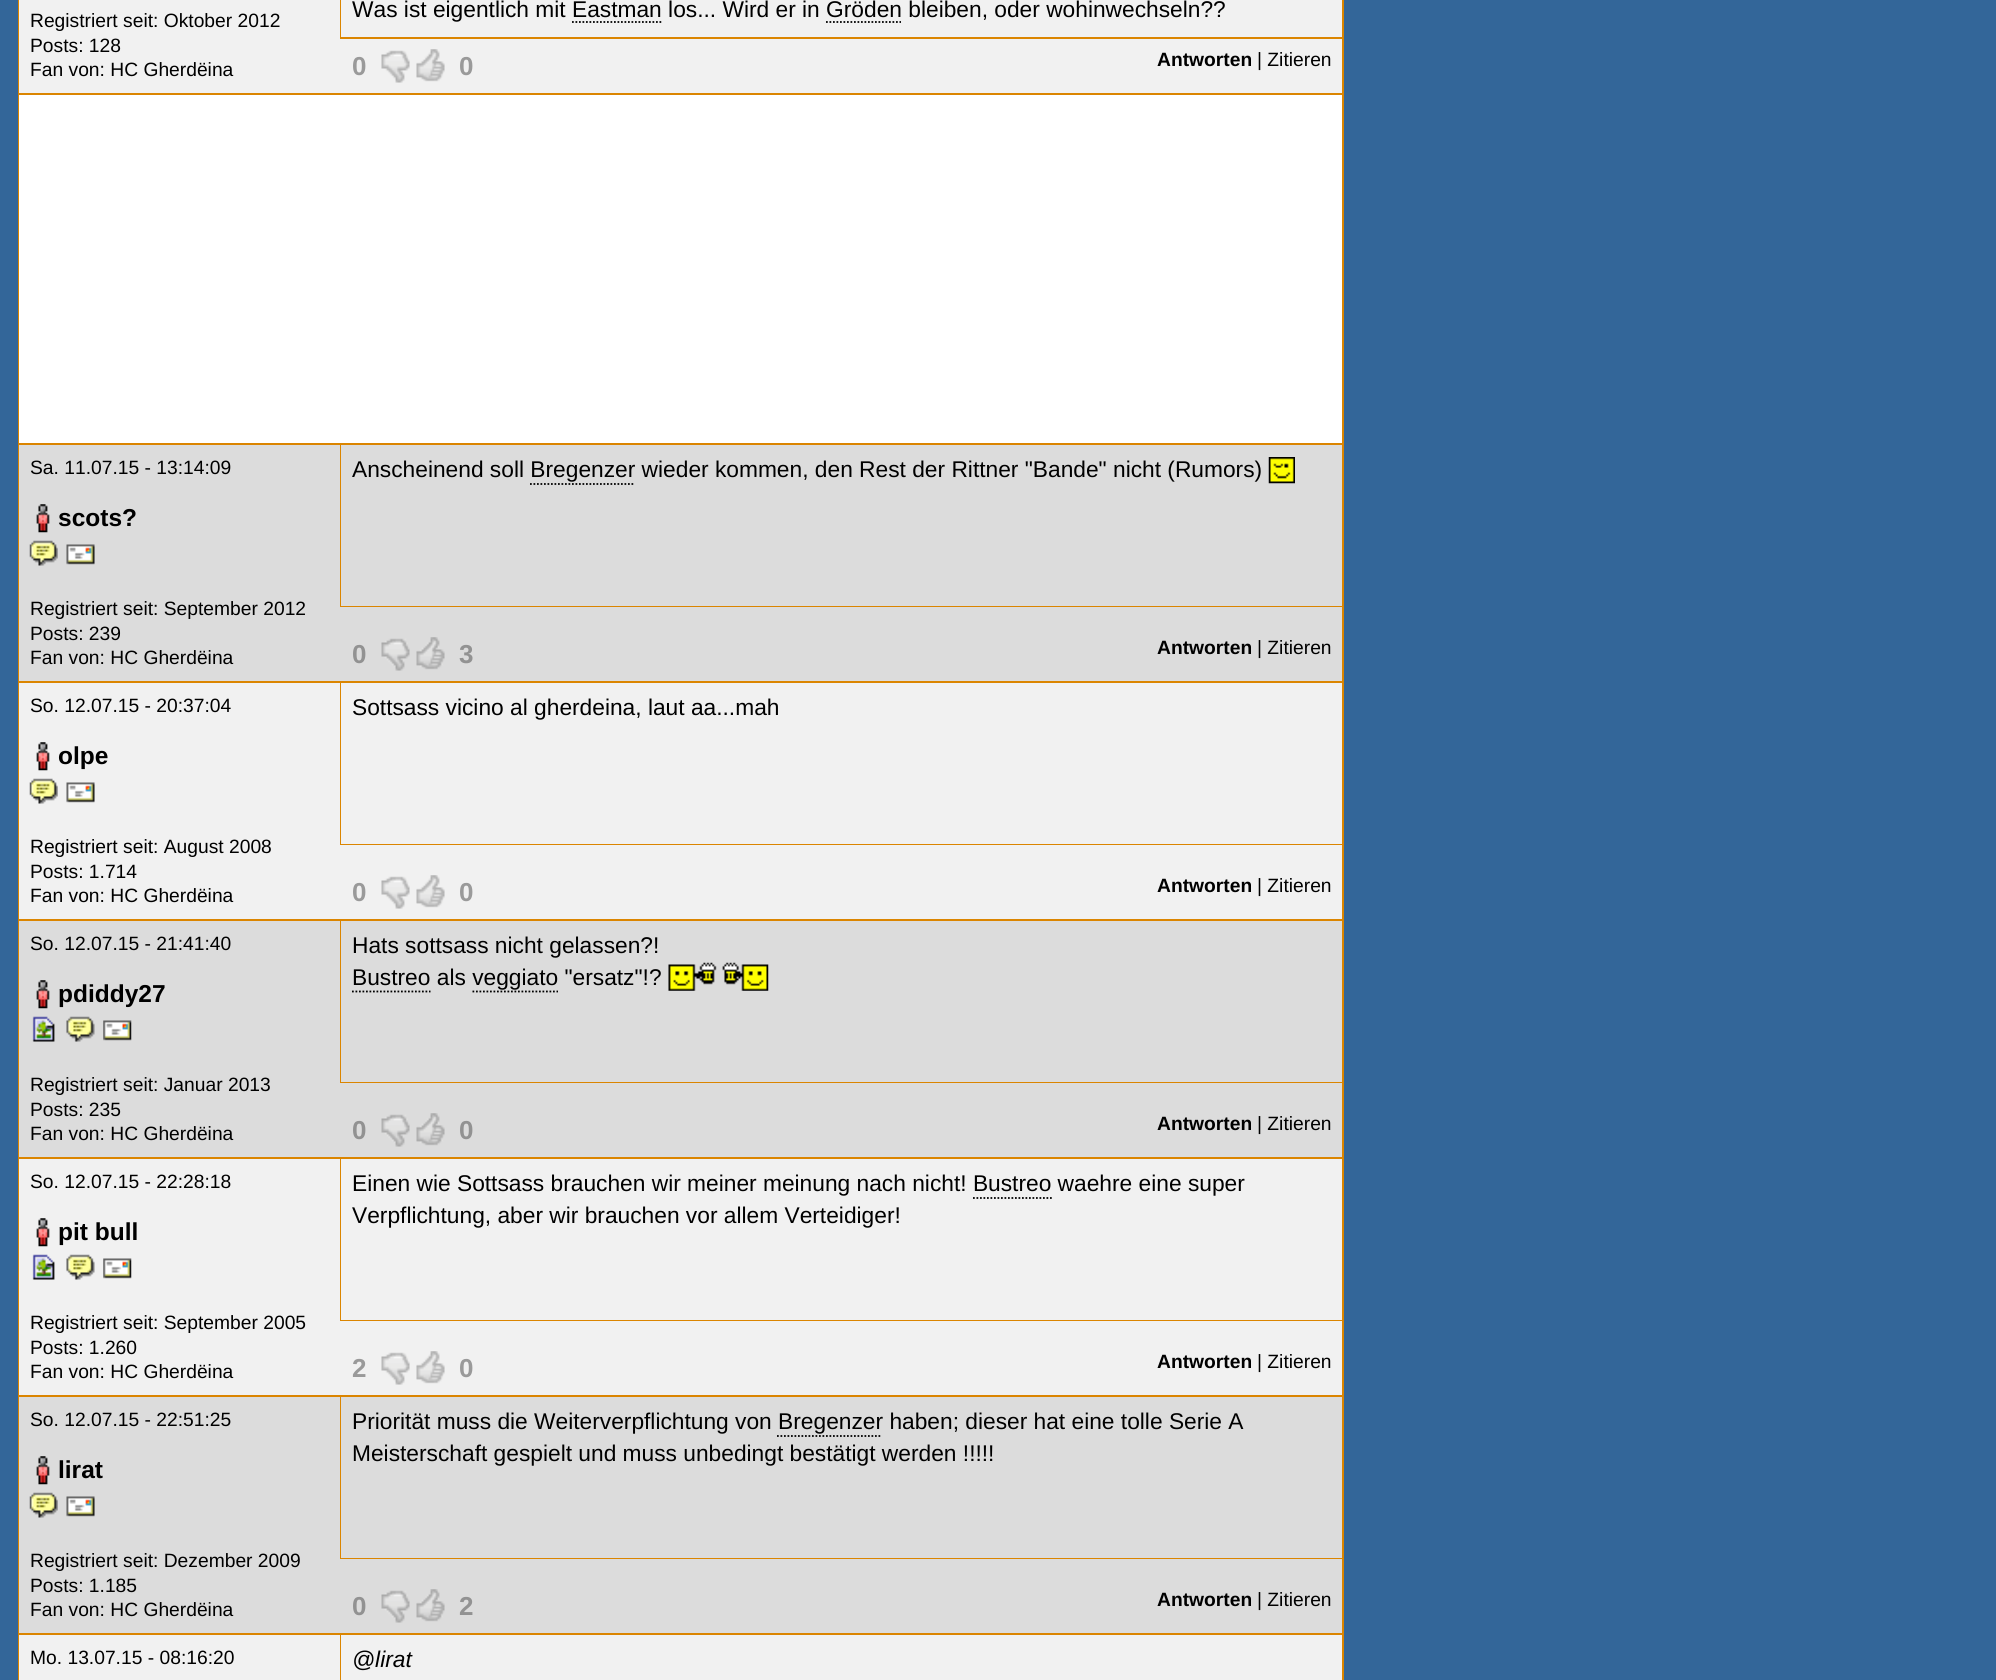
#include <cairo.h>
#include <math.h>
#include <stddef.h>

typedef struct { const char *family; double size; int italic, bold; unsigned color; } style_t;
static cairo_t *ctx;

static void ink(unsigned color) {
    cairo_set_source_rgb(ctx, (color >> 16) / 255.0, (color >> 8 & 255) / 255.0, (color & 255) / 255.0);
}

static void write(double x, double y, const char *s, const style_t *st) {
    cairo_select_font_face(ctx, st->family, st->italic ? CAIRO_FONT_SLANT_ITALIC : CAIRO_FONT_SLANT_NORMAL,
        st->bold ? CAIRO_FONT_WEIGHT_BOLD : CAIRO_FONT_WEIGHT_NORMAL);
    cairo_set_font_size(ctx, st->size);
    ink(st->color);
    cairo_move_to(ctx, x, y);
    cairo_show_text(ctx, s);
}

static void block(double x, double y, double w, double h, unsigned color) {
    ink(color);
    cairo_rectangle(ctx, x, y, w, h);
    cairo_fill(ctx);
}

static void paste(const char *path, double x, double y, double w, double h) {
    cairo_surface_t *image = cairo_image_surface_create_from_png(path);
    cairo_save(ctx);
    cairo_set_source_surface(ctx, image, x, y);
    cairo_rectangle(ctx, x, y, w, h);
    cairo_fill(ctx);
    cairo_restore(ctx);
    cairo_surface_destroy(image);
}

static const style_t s1 = {"Liberation Sans", 19.25, 0, 0, 0x000000};
static const style_t s2 = {"Liberation Sans", 22.75, 0, 0, 0x000000};
static const style_t s3 = {"Liberation Sans", 26, 0, 1, 0x9a9a9a};
static const style_t s4 = {"Liberation Sans", 19.25, 0, 1, 0x000000};
static const style_t s5 = {"Liberation Sans", 24.5, 0, 1, 0x000000};
static const style_t s6 = {"Liberation Sans", 26, 0, 1, 0x929292};
static const style_t s7 = {"Liberation Sans", 22.75, 1, 0, 0x000000};

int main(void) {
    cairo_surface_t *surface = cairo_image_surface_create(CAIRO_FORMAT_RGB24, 1996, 1680);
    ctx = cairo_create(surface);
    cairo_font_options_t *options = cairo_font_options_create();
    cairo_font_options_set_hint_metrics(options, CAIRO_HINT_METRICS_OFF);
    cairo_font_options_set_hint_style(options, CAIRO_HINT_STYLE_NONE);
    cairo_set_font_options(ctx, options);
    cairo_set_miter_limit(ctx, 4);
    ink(0x336699);
    cairo_paint(ctx);
    block(18, 0, 1326, 1680, 0xdb8500);
    block(19, 0, 321, 39, 0xf1f1f1);
    write(30, 27, "Registriert seit: Oktober 2012", &s1);
    block(19, 39, 1323, 54, 0xf1f1f1);
    write(30, 52, "Posts: 128", &s1);
    write(30, 76, "Fan von: HC Gherdëina", &s1);
    block(341, 0, 1001, 37, 0xf1f1f1);
    write(352, 17, "Was ist eigentlich mit Eastman los... Wird er in Gröden bleiben, oder wohinwechseln?\077", &s2);
    cairo_new_path(ctx);
    cairo_move_to(ctx, 572, 22);
    cairo_line_to(ctx, 661.5, 22);
    cairo_set_line_width(ctx, 1.8);
    cairo_set_dash(ctx, (double[]){1.75, 1.75}, 2, 0);
    cairo_stroke(ctx);
    cairo_new_path(ctx);
    cairo_move_to(ctx, 826, 22);
    cairo_line_to(ctx, 901, 22);
    cairo_stroke(ctx);
    write(352, 75, "0", &s3);
    paste("pic1.png", 381, 50, 29, 33);
    paste("pic2.png", 416, 49, 29, 33);
    write(459, 75, "0", &s3);
    write(1157, 66, "Antworten", &s4);
    write(1257, 66, "| Zitieren", &s1);
    block(19, 95, 1323, 348, 0xffffff);
    block(19, 445, 321, 162, 0xdcdcdc);
    write(30, 474, "Sa. 11.07.15 - 13:14:09", &s1);
    paste("pic3.png", 36, 504, 14, 29);
    write(58, 526, "scots?", &s5);
    paste("pic4.png", 29, 540, 29, 26);
    paste("pic5.png", 66, 544, 29, 21);
    block(19, 607, 1323, 74, 0xdcdcdc);
    write(30, 615, "Registriert seit: September 2012", &s1);
    write(30, 640, "Posts: 239", &s1);
    write(30, 664, "Fan von: HC Gherdëina", &s1);
    block(341, 445, 1001, 161, 0xdcdcdc);
    write(352, 477, "Anscheinend soll Bregenzer wieder kommen, den Rest der Rittner \"Bande\" nicht (Rumors)", &s2);
    paste("pic6.png", 1268, 457, 27, 27);
    cairo_new_path(ctx);
    cairo_move_to(ctx, 530, 484);
    cairo_line_to(ctx, 635, 484);
    cairo_stroke(ctx);
    write(352, 663, "0", &s6);
    paste("pic7.png", 381, 638, 29, 33);
    paste("pic8.png", 416, 637, 29, 33);
    write(459, 663, "3", &s6);
    write(1157, 654, "Antworten", &s4);
    write(1257, 654, "| Zitieren", &s1);
    block(19, 683, 321, 162, 0xf1f1f1);
    write(30, 712, "So. 12.07.15 - 20:37:04", &s1);
    paste("pic9.png", 36, 742, 14, 29);
    write(58, 764, "olpe", &s5);
    paste("pic10.png", 29, 778, 29, 26);
    paste("pic11.png", 66, 782, 29, 21);
    block(19, 845, 1323, 74, 0xf1f1f1);
    write(30, 853, "Registriert seit: August 2008", &s1);
    write(30, 878, "Posts: 1.714", &s1);
    write(30, 902, "Fan von: HC Gherdëina", &s1);
    block(341, 683, 1001, 161, 0xf1f1f1);
    write(352, 715, "Sottsass vicino al gherdeina, laut aa...mah", &s2);
    write(352, 901, "0", &s3);
    paste("pic12.png", 381, 876, 29, 33);
    paste("pic13.png", 416, 875, 29, 33);
    write(459, 901, "0", &s3);
    write(1157, 892, "Antworten", &s4);
    write(1257, 892, "| Zitieren", &s1);
    block(19, 921, 321, 162, 0xdcdcdc);
    write(30, 950, "So. 12.07.15 - 21:41:40", &s1);
    paste("pic3.png", 36, 980, 14, 29);
    write(58, 1002, "pdiddy27", &s5);
    paste("pic14.png", 32, 1016, 23, 26);
    paste("pic15.png", 66, 1016, 29, 26);
    paste("pic16.png", 103, 1020, 29, 21);
    block(19, 1083, 1323, 74, 0xdcdcdc);
    write(30, 1091, "Registriert seit: Januar 2013", &s1);
    write(30, 1116, "Posts: 235", &s1);
    write(30, 1140, "Fan von: HC Gherdëina", &s1);
    block(341, 921, 1001, 161, 0xdcdcdc);
    write(352, 953, "Hats sottsass nicht gelassen?!", &s2);
    write(352, 985, "Bustreo als veggiato \"ersatz\"!?", &s2);
    cairo_new_path(ctx);
    cairo_move_to(ctx, 352, 991.5);
    cairo_line_to(ctx, 430.5, 991.5);
    cairo_stroke(ctx);
    paste("pic17.png", 668, 962, 101, 29);
    cairo_new_path(ctx);
    cairo_move_to(ctx, 472.5, 991.5);
    cairo_line_to(ctx, 558, 991.5);
    cairo_stroke(ctx);
    write(352, 1139, "0", &s6);
    paste("pic7.png", 381, 1114, 29, 33);
    paste("pic8.png", 416, 1113, 29, 33);
    write(459, 1139, "0", &s6);
    write(1157, 1130, "Antworten", &s4);
    write(1257, 1130, "| Zitieren", &s1);
    block(19, 1159, 321, 162, 0xf1f1f1);
    write(30, 1188, "So. 12.07.15 - 22:28:18", &s1);
    paste("pic9.png", 36, 1218, 14, 29);
    write(58, 1240, "pit bull", &s5);
    paste("pic18.png", 32, 1254, 23, 26);
    paste("pic19.png", 66, 1254, 29, 26);
    paste("pic20.png", 103, 1258, 29, 21);
    block(19, 1321, 1323, 74, 0xf1f1f1);
    write(30, 1329, "Registriert seit: September 2005", &s1);
    write(30, 1354, "Posts: 1.260", &s1);
    write(30, 1378, "Fan von: HC Gherdëina", &s1);
    block(341, 1159, 1001, 161, 0xf1f1f1);
    write(352, 1191, "Einen wie Sottsass brauchen wir meiner meinung nach nicht! Bustreo waehre eine super", &s2);
    cairo_new_path(ctx);
    cairo_move_to(ctx, 973, 1198);
    cairo_line_to(ctx, 1052, 1198);
    cairo_stroke(ctx);
    write(352, 1223, "Verpflichtung, aber wir brauchen vor allem Verteidiger!", &s2);
    write(352, 1377, "2", &s3);
    paste("pic12.png", 381, 1352, 29, 33);
    paste("pic13.png", 416, 1351, 29, 33);
    write(459, 1377, "0", &s3);
    write(1157, 1368, "Antworten", &s4);
    write(1257, 1368, "| Zitieren", &s1);
    block(19, 1397, 321, 162, 0xdcdcdc);
    write(30, 1426, "So. 12.07.15 - 22:51:25", &s1);
    paste("pic3.png", 36, 1456, 14, 29);
    write(58, 1478, "lirat", &s5);
    paste("pic4.png", 29, 1492, 29, 26);
    paste("pic5.png", 66, 1496, 29, 21);
    block(19, 1559, 1323, 74, 0xdcdcdc);
    write(30, 1567, "Registriert seit: Dezember 2009", &s1);
    write(30, 1592, "Posts: 1.185", &s1);
    write(30, 1616, "Fan von: HC Gherdëina", &s1);
    block(341, 1397, 1001, 161, 0xdcdcdc);
    write(352, 1429, "Priorität muss die Weiterverpflichtung von Bregenzer haben; dieser hat eine tolle Serie A", &s2);
    cairo_new_path(ctx);
    cairo_move_to(ctx, 777, 1436);
    cairo_line_to(ctx, 882, 1436);
    cairo_stroke(ctx);
    write(352, 1461, "Meisterschaft gespielt und muss unbedingt bestätigt werden !!!!!", &s2);
    write(352, 1615, "0", &s6);
    paste("pic7.png", 381, 1590, 29, 33);
    paste("pic8.png", 416, 1589, 29, 33);
    write(459, 1615, "2", &s6);
    write(1157, 1606, "Antworten", &s4);
    write(1257, 1606, "| Zitieren", &s1);
    block(19, 1635, 321, 45, 0xf1f1f1);
    write(30, 1664, "Mo. 13.07.15 - 08:16:20", &s1);
    block(341, 1635, 1001, 45, 0xf1f1f1);
    write(352, 1667, "@lirat", &s7);
    cairo_surface_write_to_png(surface, "screenshot.png");
    cairo_font_options_destroy(options);
    cairo_destroy(ctx);
    cairo_surface_destroy(surface);
    return 0;
}
